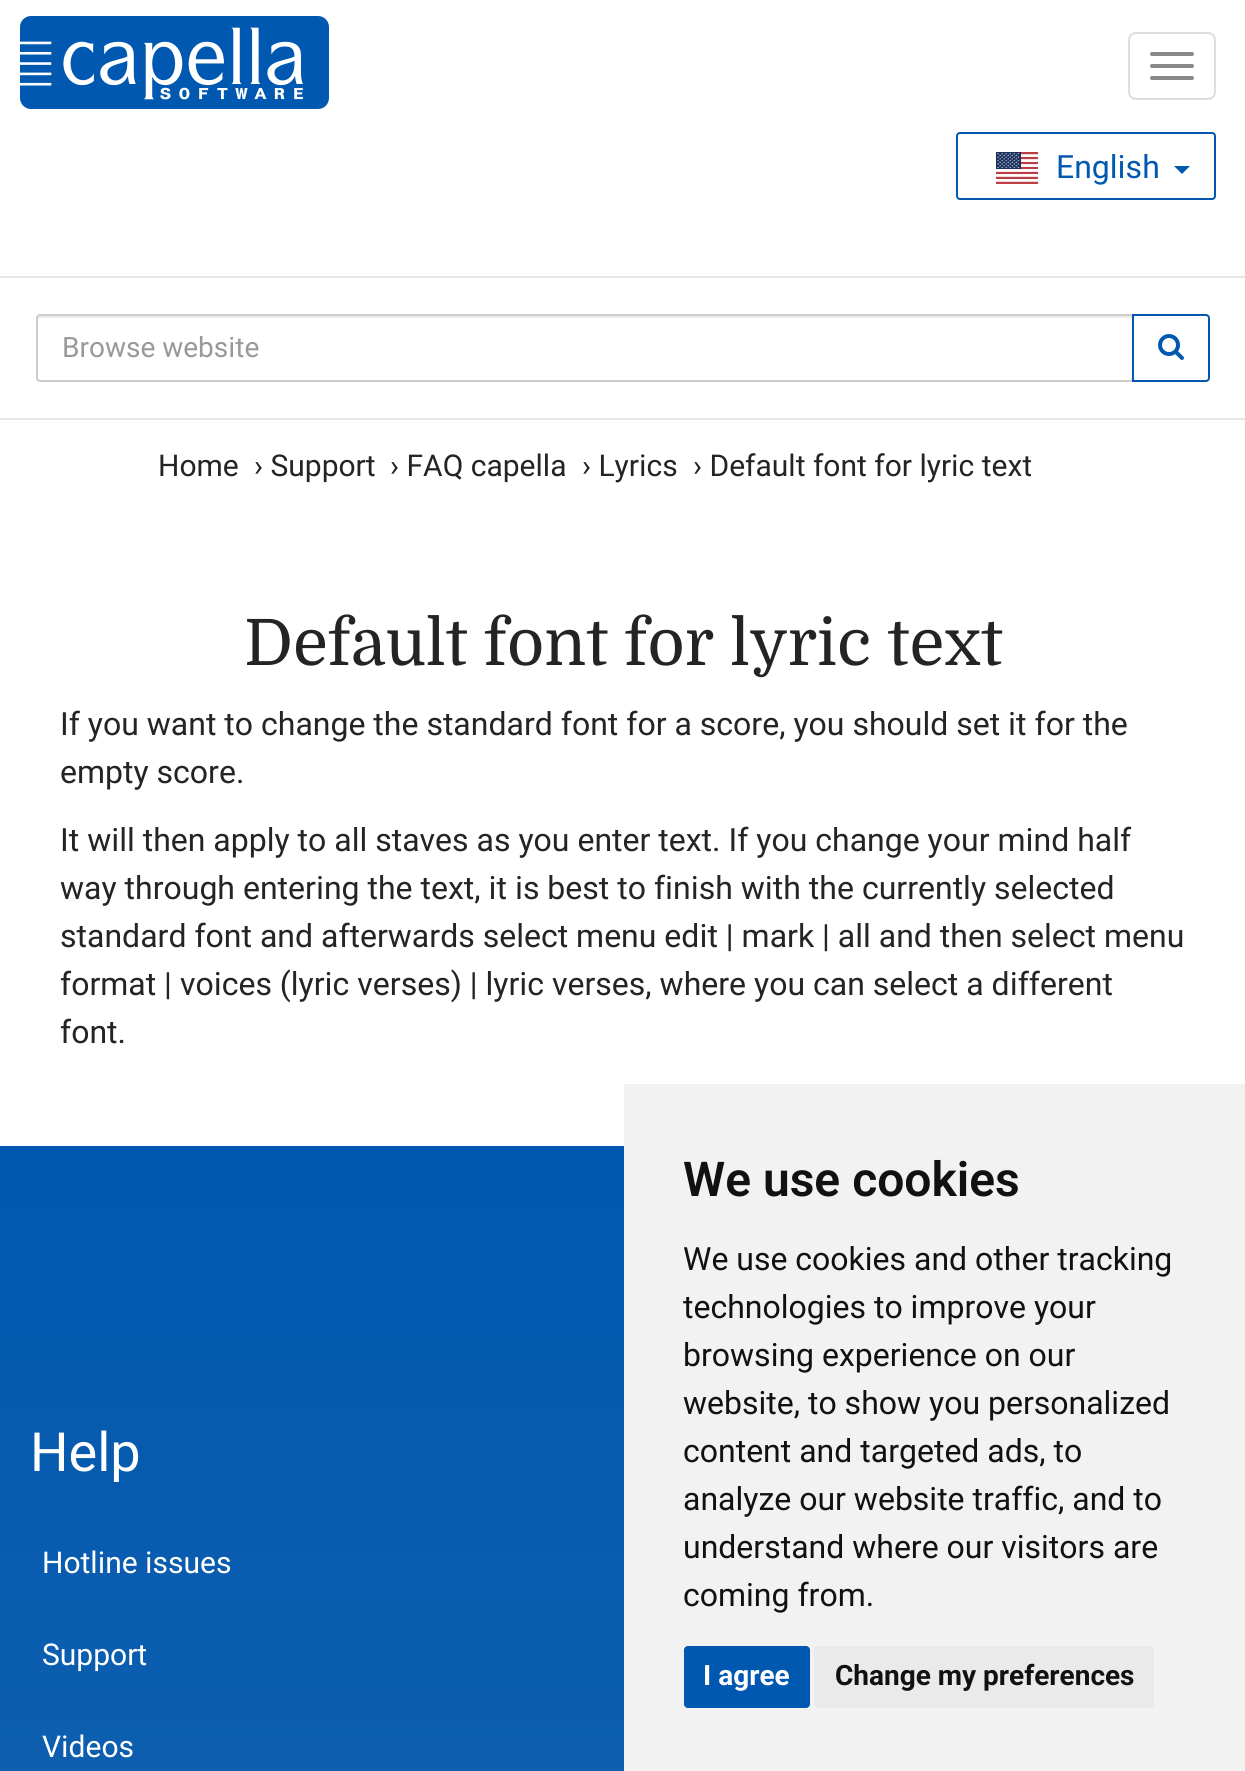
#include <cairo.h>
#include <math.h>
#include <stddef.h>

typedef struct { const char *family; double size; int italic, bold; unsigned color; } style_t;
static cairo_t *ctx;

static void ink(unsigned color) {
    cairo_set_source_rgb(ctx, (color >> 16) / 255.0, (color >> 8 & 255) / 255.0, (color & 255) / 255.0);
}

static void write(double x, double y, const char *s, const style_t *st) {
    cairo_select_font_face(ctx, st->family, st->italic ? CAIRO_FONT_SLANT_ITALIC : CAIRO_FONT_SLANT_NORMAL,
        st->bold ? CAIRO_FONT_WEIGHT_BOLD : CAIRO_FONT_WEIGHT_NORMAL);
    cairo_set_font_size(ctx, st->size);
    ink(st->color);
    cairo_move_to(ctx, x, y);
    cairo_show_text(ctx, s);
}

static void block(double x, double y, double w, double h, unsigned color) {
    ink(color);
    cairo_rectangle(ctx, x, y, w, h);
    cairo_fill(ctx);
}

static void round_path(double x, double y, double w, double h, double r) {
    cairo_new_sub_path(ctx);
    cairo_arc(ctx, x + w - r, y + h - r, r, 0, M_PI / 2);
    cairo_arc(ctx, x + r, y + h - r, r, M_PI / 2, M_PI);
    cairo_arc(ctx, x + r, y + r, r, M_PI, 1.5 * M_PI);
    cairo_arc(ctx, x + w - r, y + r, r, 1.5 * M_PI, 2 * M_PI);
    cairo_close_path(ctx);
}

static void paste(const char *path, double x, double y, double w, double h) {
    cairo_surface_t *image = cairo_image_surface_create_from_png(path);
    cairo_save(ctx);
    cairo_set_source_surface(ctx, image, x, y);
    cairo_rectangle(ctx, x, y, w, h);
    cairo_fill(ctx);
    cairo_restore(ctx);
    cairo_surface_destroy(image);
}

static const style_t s1 = {"Heebo", 32, 0, 0, 0x0058b0};
static const style_t s2 = {"Heebo", 28, 0, 0, 0x999999};
static const style_t s3 = {"Heebo", 30, 0, 0, 0x222524};
static const style_t s4 = {"Domine", 64, 0, 0, 0x222524};
static const style_t s5 = {"Heebo", 32, 0, 0, 0x222524};
static const style_t s6 = {"Heebo", 54, 0, 0, 0xffffff};
static const style_t s7 = {"Heebo", 30, 0, 0, 0xffffff};
static const style_t s8 = {"Roboto SemiBold", 48, 0, 0, 0x111111};
static const style_t s9 = {"Roboto", 32, 0, 0, 0x111111};
static const style_t s10 = {"Roboto", 28, 0, 1, 0xffffff};
static const style_t s11 = {"Roboto", 28, 0, 1, 0x111111};

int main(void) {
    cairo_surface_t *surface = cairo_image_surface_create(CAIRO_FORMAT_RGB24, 1245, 1771);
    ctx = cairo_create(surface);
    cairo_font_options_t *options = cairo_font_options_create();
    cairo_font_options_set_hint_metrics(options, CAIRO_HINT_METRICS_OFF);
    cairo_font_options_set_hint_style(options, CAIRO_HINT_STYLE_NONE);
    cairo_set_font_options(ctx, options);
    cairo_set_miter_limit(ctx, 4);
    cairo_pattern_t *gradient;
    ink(0xffffff);
    cairo_paint(ctx);
    paste("pic1.png", 20, 16, 309, 93);
    round_path(1129, 33, 86, 66, 7);
    ink(0xdddddd);
    cairo_stroke(ctx);
    ink(0x888888);
    round_path(1150, 52, 44, 4, 2);
    cairo_fill(ctx);
    round_path(1150, 64, 44, 4, 2);
    cairo_fill(ctx);
    round_path(1150, 76, 44, 4, 2);
    cairo_fill(ctx);
    round_path(957, 133, 258, 66, 3);
    ink(0x0058b0);
    cairo_stroke(ctx);
    paste("pic2.png", 996, 152, 42, 32);
    write(1056, 178, "English", &s1);
    cairo_new_path(ctx);
    cairo_move_to(ctx, 1174, 166);
    cairo_line_to(ctx, 1190, 166);
    cairo_line_to(ctx, 1182, 174);
    cairo_close_path(ctx);
    cairo_fill(ctx);
    block(0, 276, 1245, 2, 0xe7e7e7);
    block(0, 418, 1245, 2, 0xe7e7e7);
    ink(0xececec);
    cairo_new_path(ctx);
    cairo_move_to(ctx, 40, 318);
    cairo_line_to(ctx, 1130, 318);
    cairo_curve_to(ctx, 1131, 318, 1132, 319, 1132, 320);
    cairo_curve_to(ctx, 1132, 318, 1132, 316, 1130, 316);
    cairo_line_to(ctx, 40, 316);
    cairo_line_to(ctx, 38, 317);
    cairo_line_to(ctx, 38, 320);
    cairo_curve_to(ctx, 38, 319, 39, 318, 40, 318);
    cairo_close_path(ctx);
    cairo_fill(ctx);
    round_path(37, 315, 1096, 66, 3);
    ink(0xcccccc);
    cairo_stroke(ctx);
    write(62, 357, "Browse website", &s2);
    ink(0xffffff);
    cairo_new_path(ctx);
    cairo_move_to(ctx, 1133, 315);
    cairo_line_to(ctx, 1206, 315);
    cairo_curve_to(ctx, 1207.5, 315, 1209, 316.5, 1209, 318);
    cairo_line_to(ctx, 1209, 378);
    cairo_curve_to(ctx, 1209, 379.5, 1207.5, 381, 1206, 381);
    cairo_line_to(ctx, 1133, 381);
    cairo_close_path(ctx);
    cairo_fill_preserve(ctx);
    ink(0x0058b0);
    cairo_stroke(ctx);
    paste("pic3.png", 1158, 334, 26, 26);
    write(158, 476, "Home", &s3);
    write(254, 476, "› Support", &s3);
    write(390, 476, "› FAQ capella", &s3);
    write(582, 476, "› Lyrics", &s3);
    write(693, 476, "› Default font for lyric text", &s3);
    write(244, 665, "Default font for lyric text", &s4);
    write(60, 735, "If you want to change the standard font for a score, you should set it for the", &s5);
    write(60, 783, "empty score.", &s5);
    write(60, 851, "It will then apply to all staves as you enter text. If you change your mind half", &s5);
    write(60, 899, "way through entering the text, it is best to finish with the currently selected", &s5);
    write(60, 947, "standard font and afterwards select menu edit | mark | all and then select menu", &s5);
    write(60, 995, "format | voices (lyric verses) | lyric verses, where you can select a different", &s5);
    write(60, 1043, "font.", &s5);
    gradient = cairo_pattern_create_linear(623, 1146, 623, 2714);
    cairo_pattern_add_color_stop_rgba(gradient, 0, 0, 0.345, 0.69, 1);
    cairo_pattern_add_color_stop_rgba(gradient, 1, 0.129, 0.404, 0.675, 1);
    cairo_set_source(ctx, gradient);
    cairo_pattern_destroy(gradient);
    cairo_rectangle(ctx, 0, 1146, 624, 625);
    cairo_fill(ctx);
    write(30, 1471, "Help", &s6);
    write(42, 1573, "Hotline issues", &s7);
    write(42, 1665, "Support", &s7);
    write(42, 1757, "Videos", &s7);
    block(624, 1084, 621, 687, 0xf2f2f2);
    write(683, 1196, "We use cookies", &s8);
    write(683, 1270, "We use cookies and other tracking", &s9);
    write(683, 1318, "technologies to improve your", &s9);
    write(683, 1366, "browsing experience on our", &s9);
    write(683, 1414, "website, to show you personalized", &s9);
    write(683, 1462, "content and targeted ads, to", &s9);
    write(683, 1510, "analyze our website traffic, and to", &s9);
    write(683, 1558, "understand where our visitors are", &s9);
    write(683, 1606, "coming from.", &s9);
    ink(0x0058b0);
    round_path(684, 1646, 126, 62, 4);
    cairo_fill(ctx);
    write(703, 1685, "I agree", &s10);
    ink(0xeaeaea);
    round_path(814, 1646, 340, 62, 4);
    cairo_fill(ctx);
    write(835, 1685, "Change my preferences", &s11);
    cairo_surface_write_to_png(surface, "screenshot.png");
    cairo_font_options_destroy(options);
    cairo_destroy(ctx);
    cairo_surface_destroy(surface);
    return 0;
}
